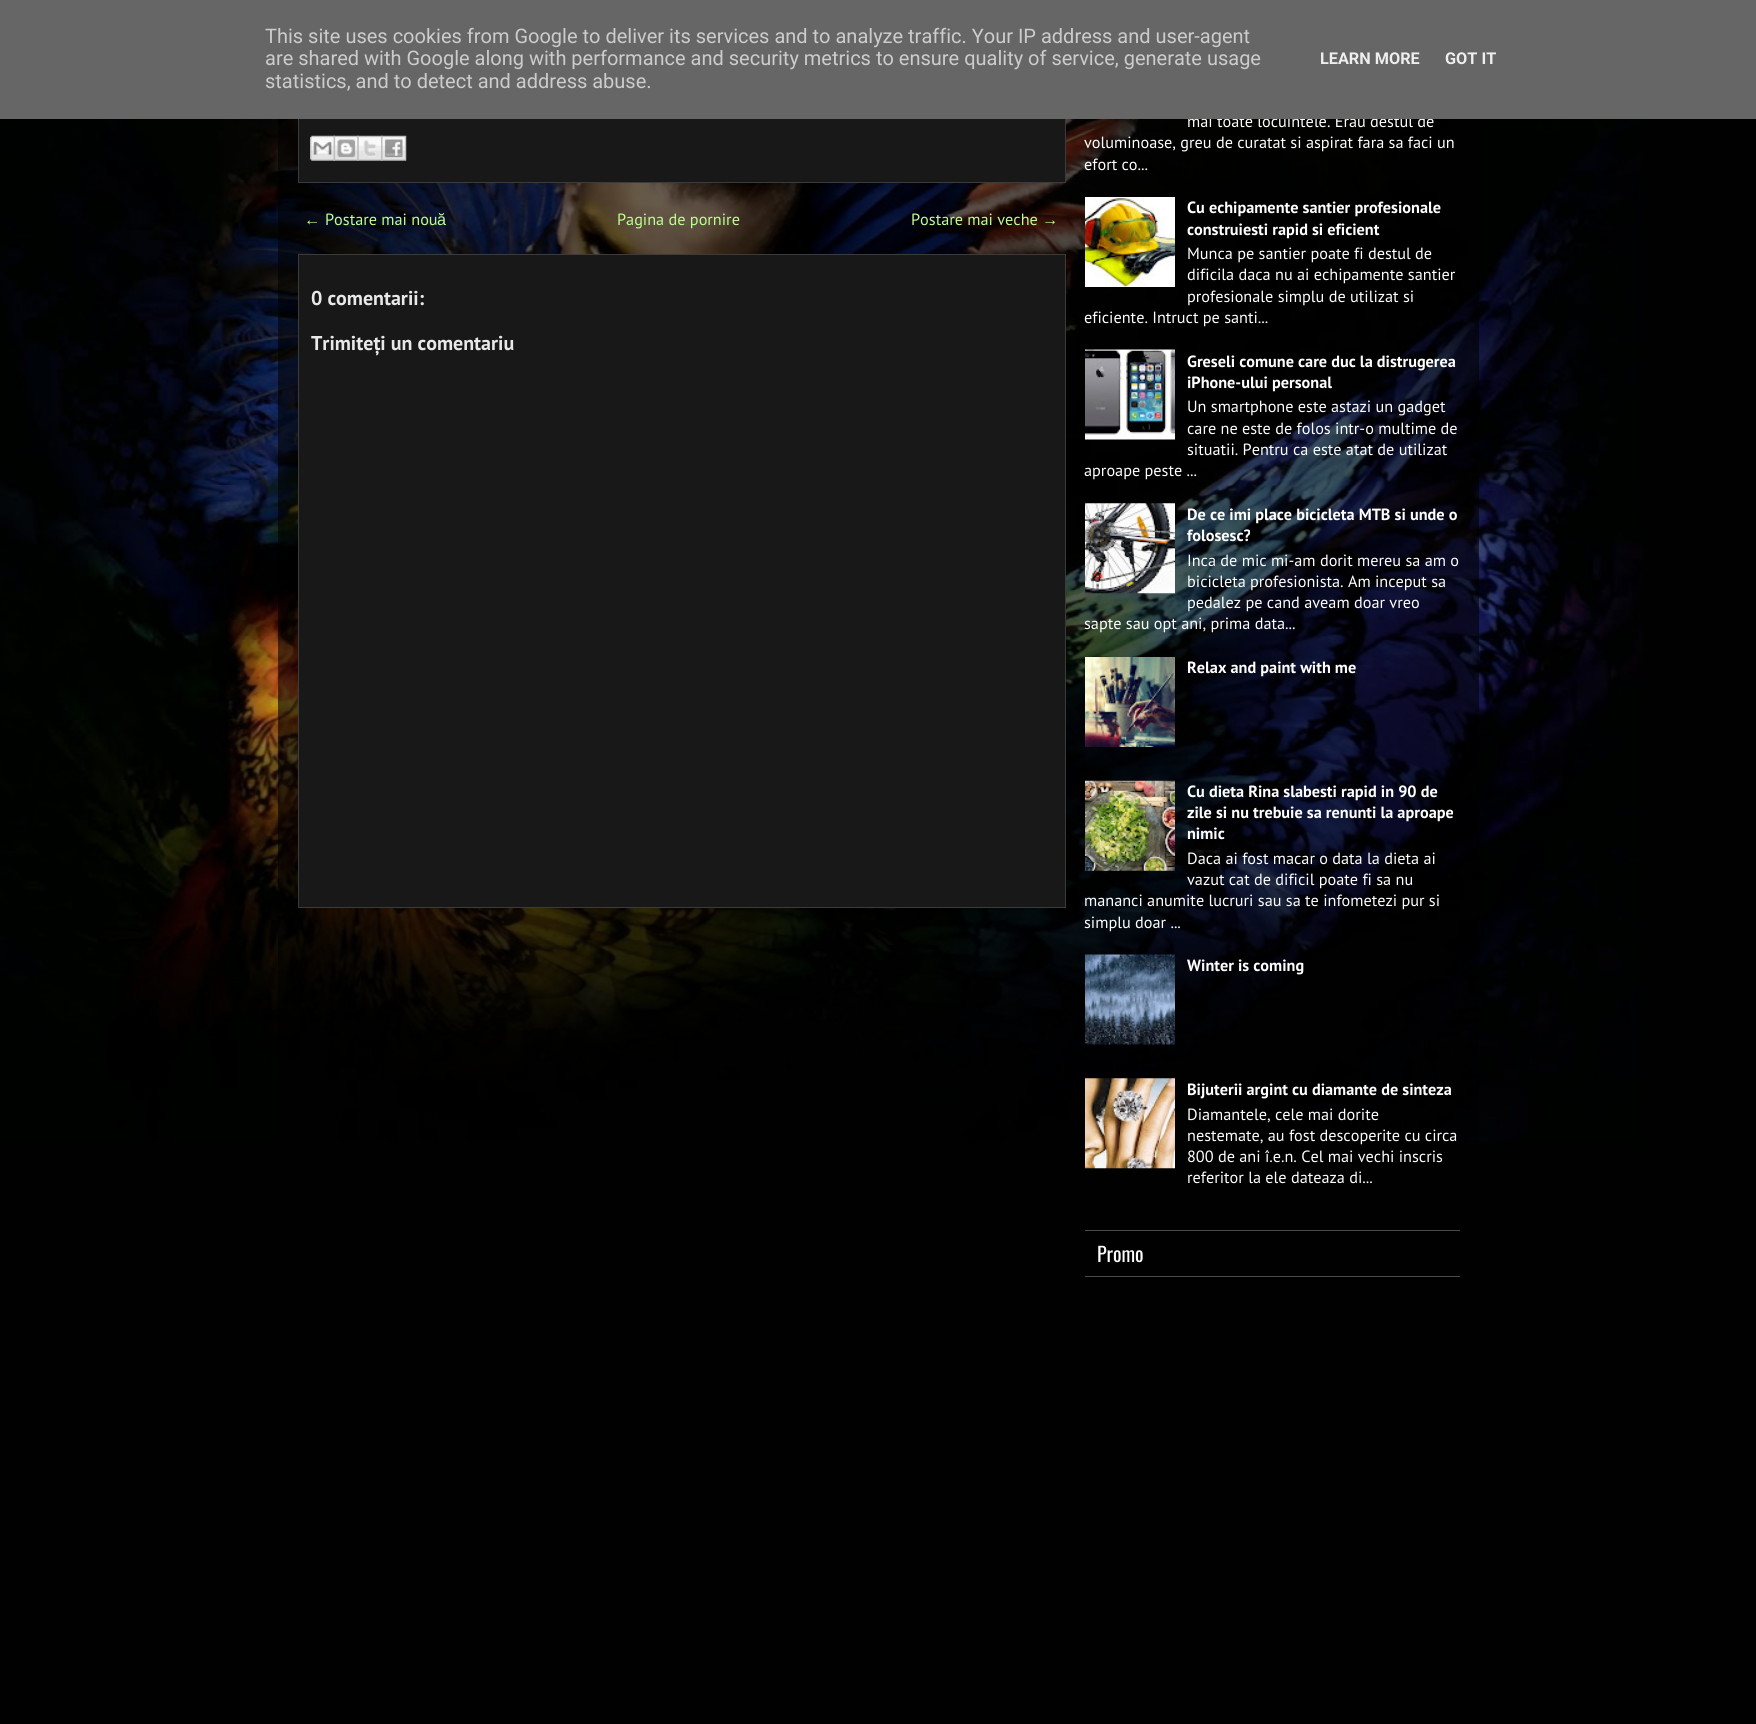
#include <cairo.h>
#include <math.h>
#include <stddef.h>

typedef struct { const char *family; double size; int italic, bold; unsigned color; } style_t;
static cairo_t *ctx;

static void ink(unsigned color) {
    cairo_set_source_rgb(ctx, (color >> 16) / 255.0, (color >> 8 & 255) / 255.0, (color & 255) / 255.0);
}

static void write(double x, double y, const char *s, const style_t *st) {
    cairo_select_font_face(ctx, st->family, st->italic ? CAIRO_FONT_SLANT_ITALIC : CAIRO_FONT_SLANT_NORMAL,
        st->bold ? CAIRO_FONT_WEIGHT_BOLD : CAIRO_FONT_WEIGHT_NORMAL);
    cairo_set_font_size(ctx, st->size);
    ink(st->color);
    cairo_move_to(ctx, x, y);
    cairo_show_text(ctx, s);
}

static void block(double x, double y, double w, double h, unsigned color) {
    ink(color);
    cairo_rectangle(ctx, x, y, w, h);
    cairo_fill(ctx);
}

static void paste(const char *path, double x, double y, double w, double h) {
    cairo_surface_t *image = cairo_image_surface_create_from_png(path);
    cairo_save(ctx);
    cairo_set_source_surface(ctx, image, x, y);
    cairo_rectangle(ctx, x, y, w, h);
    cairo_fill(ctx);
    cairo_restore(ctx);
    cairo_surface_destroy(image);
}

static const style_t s1 = {"PT Sans", 16.25, 0, 0, 0xffffff};
static const style_t s2 = {"Roboto", 20, 0, 0, 0xcccccc};
static const style_t s3 = {"Roboto", 16.25, 0, 1, 0xeeeeee};
static const style_t s4 = {"Liberation Sans", 16.25, 0, 0, 0xbefe92};
static const style_t s5 = {"PT Sans", 16.25, 0, 0, 0xbefe92};
static const style_t s6 = {"PT Sans", 20, 0, 1, 0xe8e8e8};
static const style_t s7 = {"PT Sans", 16.25, 0, 1, 0xffffff};
static const style_t s8 = {"Oswald", 20, 0, 0, 0xffffff};

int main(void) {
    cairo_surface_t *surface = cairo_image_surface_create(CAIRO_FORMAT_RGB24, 1756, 1724);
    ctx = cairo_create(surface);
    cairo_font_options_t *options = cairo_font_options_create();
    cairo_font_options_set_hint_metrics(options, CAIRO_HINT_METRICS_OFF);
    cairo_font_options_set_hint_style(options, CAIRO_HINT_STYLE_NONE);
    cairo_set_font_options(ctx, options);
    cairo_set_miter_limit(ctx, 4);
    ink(0x010101);
    cairo_paint(ctx);
    paste("pic1.png", 0, 119, 1643, 1025);
    cairo_set_source_rgba(ctx, 0, 0, 0, 0.6);
    cairo_rectangle(ctx, 278, 119, 1201, 1024);
    cairo_fill(ctx);
    block(299, 119, 766, 63, 0x181818);
    cairo_rectangle(ctx, 298.5, -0.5, 767, 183);
    ink(0x3b3b3b);
    cairo_set_line_width(ctx, 1);
    cairo_stroke(ctx);
    write(1187, 127, "mai toate locuintele. Erau destul de", &s1);
    block(0, 0, 1756, 119, 0x666666);
    write(265, 43, "This site uses cookies from Google to deliver its services and to analyze traffic. Your IP address and user-agent", &s2);
    write(265, 65, "are shared with Google along with performance and security metrics to ensure quality of service, generate usage", &s2);
    write(265, 88, "statistics, and to detect and address abuse.", &s2);
    write(1320, 64, "LEARN MORE", &s3);
    write(1445, 64, "GOT IT", &s3);
    paste("pic2.png", 310, 135, 25, 26);
    paste("pic3.png", 333, 135, 26, 26);
    paste("pic4.png", 357, 135, 26, 26);
    paste("pic5.png", 381, 135, 26, 26);
    write(304, 225, "←", &s4);
    write(325, 225, "Postare mai nou", &s5);
    write(437, 225, "ă", &s4);
    write(617, 225, "Pagina de pornire", &s5);
    write(911, 225, "Postare mai veche", &s5);
    write(1042, 225, "→", &s4);
    ink(0x181818);
    cairo_rectangle(ctx, 298.5, 254.5, 767, 653);
    cairo_fill_preserve(ctx);
    ink(0x3b3b3b);
    cairo_stroke(ctx);
    write(311, 305, "0 comentarii:", &s6);
    write(311, 350, "Trimiteți un comentariu", &s6);
    write(1084, 148, "voluminoase, greu de curatat si aspirat fara sa faci un", &s1);
    write(1084, 170, "efort co...", &s1);
    paste("pic6.png", 1085, 197, 90, 90);
    write(1187, 213, "Cu echipamente santier profesionale", &s7);
    write(1187, 235, "construiesti rapid si eficient", &s7);
    write(1187, 259, "Munca pe santier poate fi destul de", &s1);
    write(1187, 280, "dificila daca nu ai echipamente santier", &s1);
    write(1187, 302, "profesionale simplu de utilizat si", &s1);
    write(1084, 323, "eficiente. Intruct pe santi...", &s1);
    paste("pic7.png", 1085, 349, 90, 91);
    write(1187, 367, "Greseli comune care duc la distrugerea", &s7);
    write(1187, 388, "iPhone-ului personal", &s7);
    write(1187, 412, "Un smartphone este astazi un gadget", &s1);
    write(1187, 434, "care ne este de folos intr-o multime de", &s1);
    write(1187, 455, "situatii. Pentru ca este atat de utilizat", &s1);
    write(1084, 476, "aproape peste ...", &s1);
    paste("pic8.png", 1085, 503, 90, 91);
    write(1187, 520, "De ce imi place bicicleta MTB si unde o", &s7);
    write(1187, 541, "folosesc?", &s7);
    write(1187, 566, "Inca de mic mi-am dorit mereu sa am o", &s1);
    write(1187, 587, "bicicleta profesionista. Am inceput sa", &s1);
    write(1187, 608, "pedalez pe cand aveam doar vreo", &s1);
    write(1084, 629, "sapte sau opt ani, prima data...", &s1);
    paste("pic9.png", 1085, 657, 90, 90);
    write(1187, 673, "Relax and paint with me", &s7);
    paste("pic10.png", 1085, 780, 90, 91);
    write(1187, 797, "Cu dieta Rina slabesti rapid in 90 de", &s7);
    write(1187, 818, "zile si nu trebuie sa renunti la aproape", &s7);
    write(1187, 839, "nimic", &s7);
    write(1187, 864, "Daca ai fost macar o data la dieta ai", &s1);
    write(1187, 885, "vazut cat de dificil poate fi sa nu", &s1);
    write(1084, 906, "mananci anumite lucruri sau sa te infometezi pur si", &s1);
    write(1084, 928, "simplu doar ...", &s1);
    paste("pic11.png", 1085, 954, 90, 91);
    write(1187, 971, "Winter is coming", &s7);
    paste("pic12.png", 1085, 1078, 90, 91);
    write(1187, 1095, "Bijuterii argint cu diamante de sinteza", &s7);
    write(1187, 1120, "Diamantele, cele mai dorite", &s1);
    write(1187, 1141, "nestemate, au fost descoperite cu circa", &s1);
    write(1187, 1162, "800 de ani î.e.n. Cel mai vechi inscris", &s1);
    write(1187, 1183, "referitor la ele dateaza di...", &s1);
    block(1085, 1230, 375, 1, 0x4b4b4b);
    block(1085, 1276, 375, 1, 0x4b4b4b);
    write(1097, 1262, "Promo", &s8);
    cairo_surface_write_to_png(surface, "screenshot.png");
    cairo_font_options_destroy(options);
    cairo_destroy(ctx);
    cairo_surface_destroy(surface);
    return 0;
}
